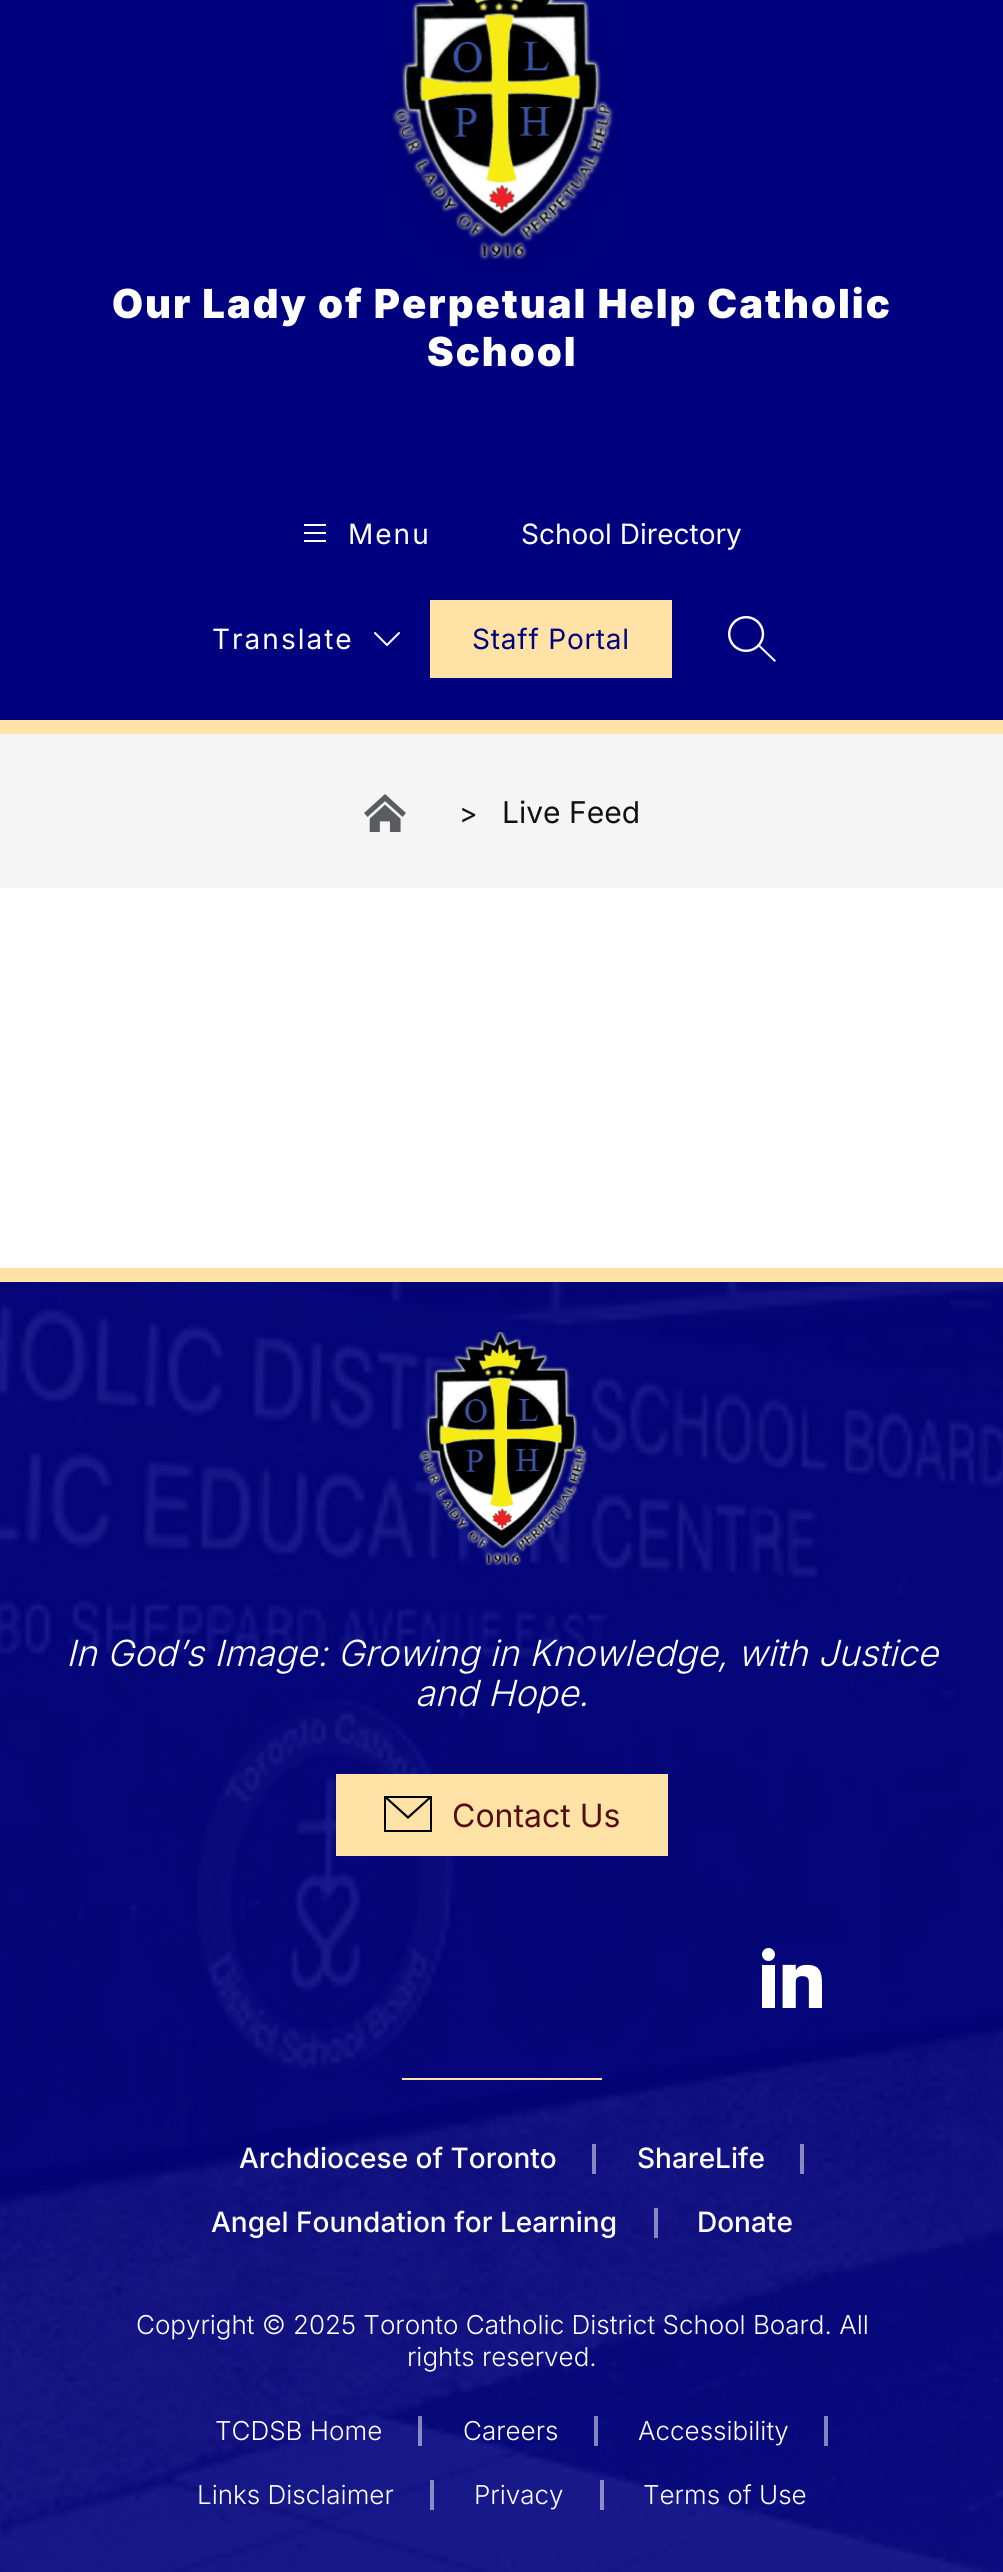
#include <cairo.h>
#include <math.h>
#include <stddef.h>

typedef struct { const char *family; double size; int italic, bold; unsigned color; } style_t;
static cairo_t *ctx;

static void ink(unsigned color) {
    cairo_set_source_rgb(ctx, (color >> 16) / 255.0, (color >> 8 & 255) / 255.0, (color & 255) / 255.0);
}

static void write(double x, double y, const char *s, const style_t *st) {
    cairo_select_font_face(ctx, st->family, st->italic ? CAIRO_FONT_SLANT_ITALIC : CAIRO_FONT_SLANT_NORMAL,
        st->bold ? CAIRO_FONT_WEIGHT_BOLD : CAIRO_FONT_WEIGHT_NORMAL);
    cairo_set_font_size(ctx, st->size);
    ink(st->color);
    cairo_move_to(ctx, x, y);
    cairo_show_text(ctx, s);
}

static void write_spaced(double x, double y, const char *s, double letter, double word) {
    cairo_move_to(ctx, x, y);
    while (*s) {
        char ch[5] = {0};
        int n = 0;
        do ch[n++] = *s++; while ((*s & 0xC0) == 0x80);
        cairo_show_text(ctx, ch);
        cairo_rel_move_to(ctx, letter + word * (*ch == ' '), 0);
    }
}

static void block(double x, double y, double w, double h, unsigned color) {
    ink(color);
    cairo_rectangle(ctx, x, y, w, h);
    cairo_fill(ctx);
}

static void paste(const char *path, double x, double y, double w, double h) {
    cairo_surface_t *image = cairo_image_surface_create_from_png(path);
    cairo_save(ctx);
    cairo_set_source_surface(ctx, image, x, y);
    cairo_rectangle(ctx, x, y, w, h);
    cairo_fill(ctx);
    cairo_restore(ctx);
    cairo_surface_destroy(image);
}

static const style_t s1 = {"Inter", 28, 0, 0, 0xffffff};
static const style_t s2 = {"Inter", 28, 0, 0, 0x111111};
static const style_t s3 = {"Inter", 30, 0, 0, 0x111111};
static const style_t s4 = {"Inter Light", 36, 1, 0, 0xffffff};
static const style_t s5 = {"Inter", 32, 0, 0, 0x560f11};
static const style_t s6 = {"Inter Medium", 28, 0, 0, 0xffffff};
static const style_t s7 = {"Inter Light", 26, 0, 0, 0xffffff};

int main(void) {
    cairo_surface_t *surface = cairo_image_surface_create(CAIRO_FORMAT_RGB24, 1003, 2572);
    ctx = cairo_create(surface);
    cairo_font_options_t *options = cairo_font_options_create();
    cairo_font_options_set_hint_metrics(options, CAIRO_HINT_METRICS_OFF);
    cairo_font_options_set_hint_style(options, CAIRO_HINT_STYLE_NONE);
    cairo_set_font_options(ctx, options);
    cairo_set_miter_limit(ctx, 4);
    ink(0xffffff);
    cairo_paint(ctx);
    block(0, 720, 1003, 14, 0xffe3a6);
    block(0, 0, 1003, 720, 0x00017f);
    cairo_select_font_face(ctx, "Inter Black", CAIRO_FONT_SLANT_NORMAL, CAIRO_FONT_WEIGHT_NORMAL);
    cairo_set_font_size(ctx, 40);
    ink(0xffffff);
    write_spaced(112, 318, "Our Lady of Perpetual Help Catholic", 2, 0);
    paste("pic1.png", 382, 0, 240, 288);
    write_spaced(427, 366, "School", 2, 0);
    paste("pic2.png", 304, 524, 22, 18);
    cairo_select_font_face(ctx, "Inter", CAIRO_FONT_SLANT_NORMAL, CAIRO_FONT_WEIGHT_NORMAL);
    cairo_set_font_size(ctx, 28);
    write_spaced(348, 544, "Menu", 2, 0);
    write(521, 544, "School Directory", &s1);
    write_spaced(212, 649, "Translate", 2, 0);
    paste("pic3.png", 374, 632, 26, 14);
    block(430, 600, 242, 78, 0xffe3a6);
    ink(0x00017f);
    write_spaced(472, 649, "Staff Portal", 0.8, 0);
    paste("pic4.png", 728, 616, 48, 46);
    block(0, 734, 1003, 154, 0xf5f5f5);
    paste("pic5.png", 364, 794, 42, 38);
    write(459, 823, ">", &s2);
    write(502, 823, "Live Feed", &s3);
    block(0, 1282, 1003, 1290, 0x00017f);
    paste("pic6.png", 0, 1282, 1003, 1290);
    block(0, 1268, 1003, 14, 0xffe3a6);
    paste("pic7.png", 418, 1332, 170, 234);
    write(66, 1666, "In God’s Image: Growing in Knowledge, with Justice", &s4);
    write(415, 1706, "and Hope.", &s4);
    block(336, 1774, 332, 82, 0xffe3a6);
    ink(0x000000);
    cairo_set_fill_rule(ctx, CAIRO_FILL_RULE_EVEN_ODD);
    cairo_new_path(ctx);
    cairo_move_to(ctx, 432, 1832);
    cairo_line_to(ctx, 384, 1832);
    cairo_line_to(ctx, 384, 1796);
    cairo_line_to(ctx, 432, 1796);
    cairo_close_path(ctx);
    cairo_move_to(ctx, 386, 1799);
    cairo_line_to(ctx, 386, 1830);
    cairo_line_to(ctx, 430, 1830);
    cairo_line_to(ctx, 430, 1799);
    cairo_line_to(ctx, 408, 1819);
    cairo_close_path(ctx);
    cairo_move_to(ctx, 428, 1798);
    cairo_line_to(ctx, 388, 1798);
    cairo_line_to(ctx, 408, 1816);
    cairo_close_path(ctx);
    cairo_fill(ctx);
    write(452, 1827, "Contact Us", &s5);
    paste("pic8.png", 762, 1948, 60, 60);
    block(402, 2078, 200, 2, 0xffe3a6);
    write(239, 2168, "Archdiocese of Toronto", &s6);
    cairo_set_source_rgba(ctx, 1, 1, 1, 0.5);
    cairo_rectangle(ctx, 592, 2144, 4, 30);
    cairo_fill(ctx);
    write(637, 2168, "ShareLife", &s6);
    cairo_set_source_rgba(ctx, 1, 1, 1, 0.5);
    cairo_rectangle(ctx, 800, 2144, 4, 30);
    cairo_fill(ctx);
    write(211, 2232, "Angel Foundation for Learning", &s6);
    cairo_set_source_rgba(ctx, 1, 1, 1, 0.5);
    cairo_rectangle(ctx, 654, 2208, 4, 30);
    cairo_fill(ctx);
    write(697, 2232, "Donate", &s6);
    write(136, 2334, "Copyright © 2025 Toronto Catholic District School Board. All", &s7);
    write(407, 2366, "rights reserved.", &s7);
    write(215, 2440, "TCDSB Home", &s7);
    cairo_set_source_rgba(ctx, 1, 1, 1, 0.5);
    cairo_rectangle(ctx, 418, 2416, 4, 30);
    cairo_fill(ctx);
    write(463, 2440, "Careers", &s7);
    cairo_set_source_rgba(ctx, 1, 1, 1, 0.5);
    cairo_rectangle(ctx, 594, 2416, 4, 30);
    cairo_fill(ctx);
    write(638, 2440, "Accessibility", &s7);
    block(824, 2416, 4, 30, 0x8484bd);
    write(197, 2504, "Links Disclaimer", &s7);
    cairo_set_source_rgba(ctx, 1, 1, 1, 0.5);
    cairo_rectangle(ctx, 430, 2480, 4, 30);
    cairo_fill(ctx);
    write(474, 2504, "Privacy", &s7);
    block(600, 2480, 4, 30, 0x8c8cc4);
    write(643, 2504, "Terms of Use", &s7);
    cairo_surface_write_to_png(surface, "screenshot.png");
    cairo_font_options_destroy(options);
    cairo_destroy(ctx);
    cairo_surface_destroy(surface);
    return 0;
}
